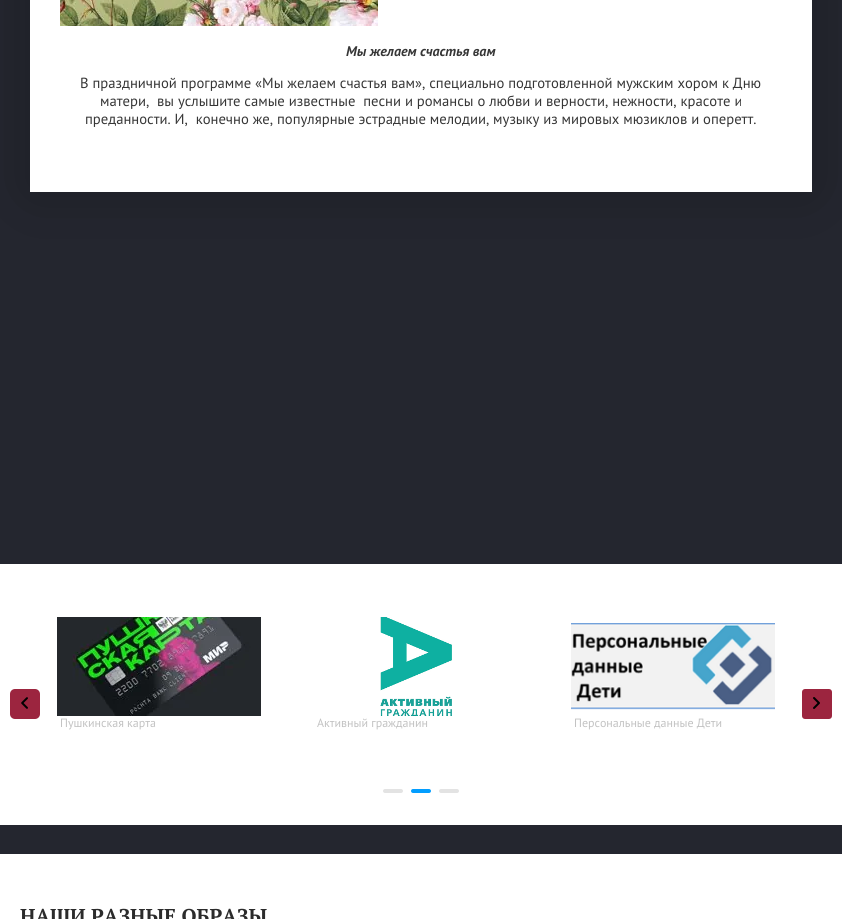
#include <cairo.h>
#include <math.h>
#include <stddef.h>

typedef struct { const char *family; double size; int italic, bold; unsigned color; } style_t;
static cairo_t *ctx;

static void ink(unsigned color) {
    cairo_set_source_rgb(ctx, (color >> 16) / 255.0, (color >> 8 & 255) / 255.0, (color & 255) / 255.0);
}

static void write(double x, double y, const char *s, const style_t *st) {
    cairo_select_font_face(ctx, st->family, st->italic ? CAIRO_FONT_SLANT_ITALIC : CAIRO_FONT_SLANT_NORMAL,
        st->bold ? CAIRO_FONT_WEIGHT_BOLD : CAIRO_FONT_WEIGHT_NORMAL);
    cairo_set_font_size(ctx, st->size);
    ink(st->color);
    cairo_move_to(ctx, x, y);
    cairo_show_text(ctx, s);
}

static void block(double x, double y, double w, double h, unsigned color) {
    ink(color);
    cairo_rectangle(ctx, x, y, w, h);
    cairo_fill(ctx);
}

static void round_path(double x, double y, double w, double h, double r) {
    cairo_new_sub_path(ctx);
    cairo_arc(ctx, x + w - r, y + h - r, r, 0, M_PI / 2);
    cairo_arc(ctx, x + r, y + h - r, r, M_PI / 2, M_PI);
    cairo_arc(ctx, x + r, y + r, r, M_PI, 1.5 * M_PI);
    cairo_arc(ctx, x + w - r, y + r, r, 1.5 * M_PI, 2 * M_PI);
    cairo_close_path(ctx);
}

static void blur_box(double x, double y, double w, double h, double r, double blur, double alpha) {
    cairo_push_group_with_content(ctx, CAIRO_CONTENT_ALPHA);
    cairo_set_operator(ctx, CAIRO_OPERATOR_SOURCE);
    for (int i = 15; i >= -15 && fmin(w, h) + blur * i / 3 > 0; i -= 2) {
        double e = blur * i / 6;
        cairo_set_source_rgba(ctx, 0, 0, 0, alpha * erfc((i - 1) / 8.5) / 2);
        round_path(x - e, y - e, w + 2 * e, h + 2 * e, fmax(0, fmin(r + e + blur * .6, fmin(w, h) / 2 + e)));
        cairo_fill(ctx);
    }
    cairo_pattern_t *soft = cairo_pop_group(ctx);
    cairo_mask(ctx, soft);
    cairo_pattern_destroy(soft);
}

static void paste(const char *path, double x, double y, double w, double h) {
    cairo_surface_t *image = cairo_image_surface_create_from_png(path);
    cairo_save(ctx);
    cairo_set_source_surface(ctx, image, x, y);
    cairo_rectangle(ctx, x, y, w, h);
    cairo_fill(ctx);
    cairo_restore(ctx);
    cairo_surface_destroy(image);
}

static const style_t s1 = {"PT Sans", 14, 1, 1, 0x363636};
static const style_t s2 = {"PT Sans", 14.65, 0, 0, 0x363636};
static const style_t s3 = {"PT Sans", 12, 0, 0, 0xc2c2c2};
static const style_t s4 = {"PT Serif", 20, 0, 1, 0x2b2b2b};

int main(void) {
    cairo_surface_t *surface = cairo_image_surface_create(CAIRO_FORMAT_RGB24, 842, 919);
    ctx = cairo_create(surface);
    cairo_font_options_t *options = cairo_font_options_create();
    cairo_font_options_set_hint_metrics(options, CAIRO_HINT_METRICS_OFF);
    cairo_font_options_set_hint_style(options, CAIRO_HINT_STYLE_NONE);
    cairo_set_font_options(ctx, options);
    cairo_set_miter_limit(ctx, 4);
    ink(0x24262f);
    cairo_paint(ctx);
    ink(0x000000);
    blur_box(30, -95, 782, 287, 0, 31.5, 0.22);
    block(30, 0, 782, 192, 0xffffff);
    paste("pic1.png", 60, 0, 318, 26);
    write(346, 56, "Мы желаем счастья вам", &s1);
    write(80, 88, "В праздничной программе «Мы желаем счастья вам», специально подготовленной мужским хором к Дню", &s2);
    write(100, 106, "матери,  вы услышите самые известные  песни и романсы о любви и верности, нежности, красоте и", &s2);
    write(85, 124, "преданности. И,  конечно же, популярные эстрадные мелодии, музыку из мировых мюзиклов и оперетт.", &s2);
    block(0, 564, 842, 261, 0xffffff);
    ink(0x9c253f);
    round_path(10, 689, 30, 30, 5);
    cairo_fill(ctx);
    paste("pic2.png", 21, 697, 7, 12);
    round_path(802, 689, 30, 30, 3);
    cairo_fill(ctx);
    paste("pic3.png", 813, 697, 7, 12);
    paste("pic4.png", 57, 617, 204, 99);
    write(60, 727, "Пушкинская карта", &s3);
    paste("pic5.png", 380, 617, 72, 99);
    write(317, 727, "Активный гражданин", &s3);
    paste("pic6.png", 571, 623, 204, 87);
    write(574, 727, "Персональные данные Дети", &s3);
    ink(0xe3e3e3);
    round_path(383, 789, 20, 4, 2);
    cairo_fill(ctx);
    ink(0x039eff);
    round_path(411, 789, 20, 4, 2);
    cairo_fill(ctx);
    ink(0xe3e3e3);
    round_path(439, 789, 20, 4, 2);
    cairo_fill(ctx);
    block(0, 854, 842, 65, 0xffffff);
    write(20, 923, "НАШИ РАЗНЫЕ ОБРАЗЫ", &s4);
    cairo_surface_write_to_png(surface, "screenshot.png");
    cairo_font_options_destroy(options);
    cairo_destroy(ctx);
    cairo_surface_destroy(surface);
    return 0;
}
